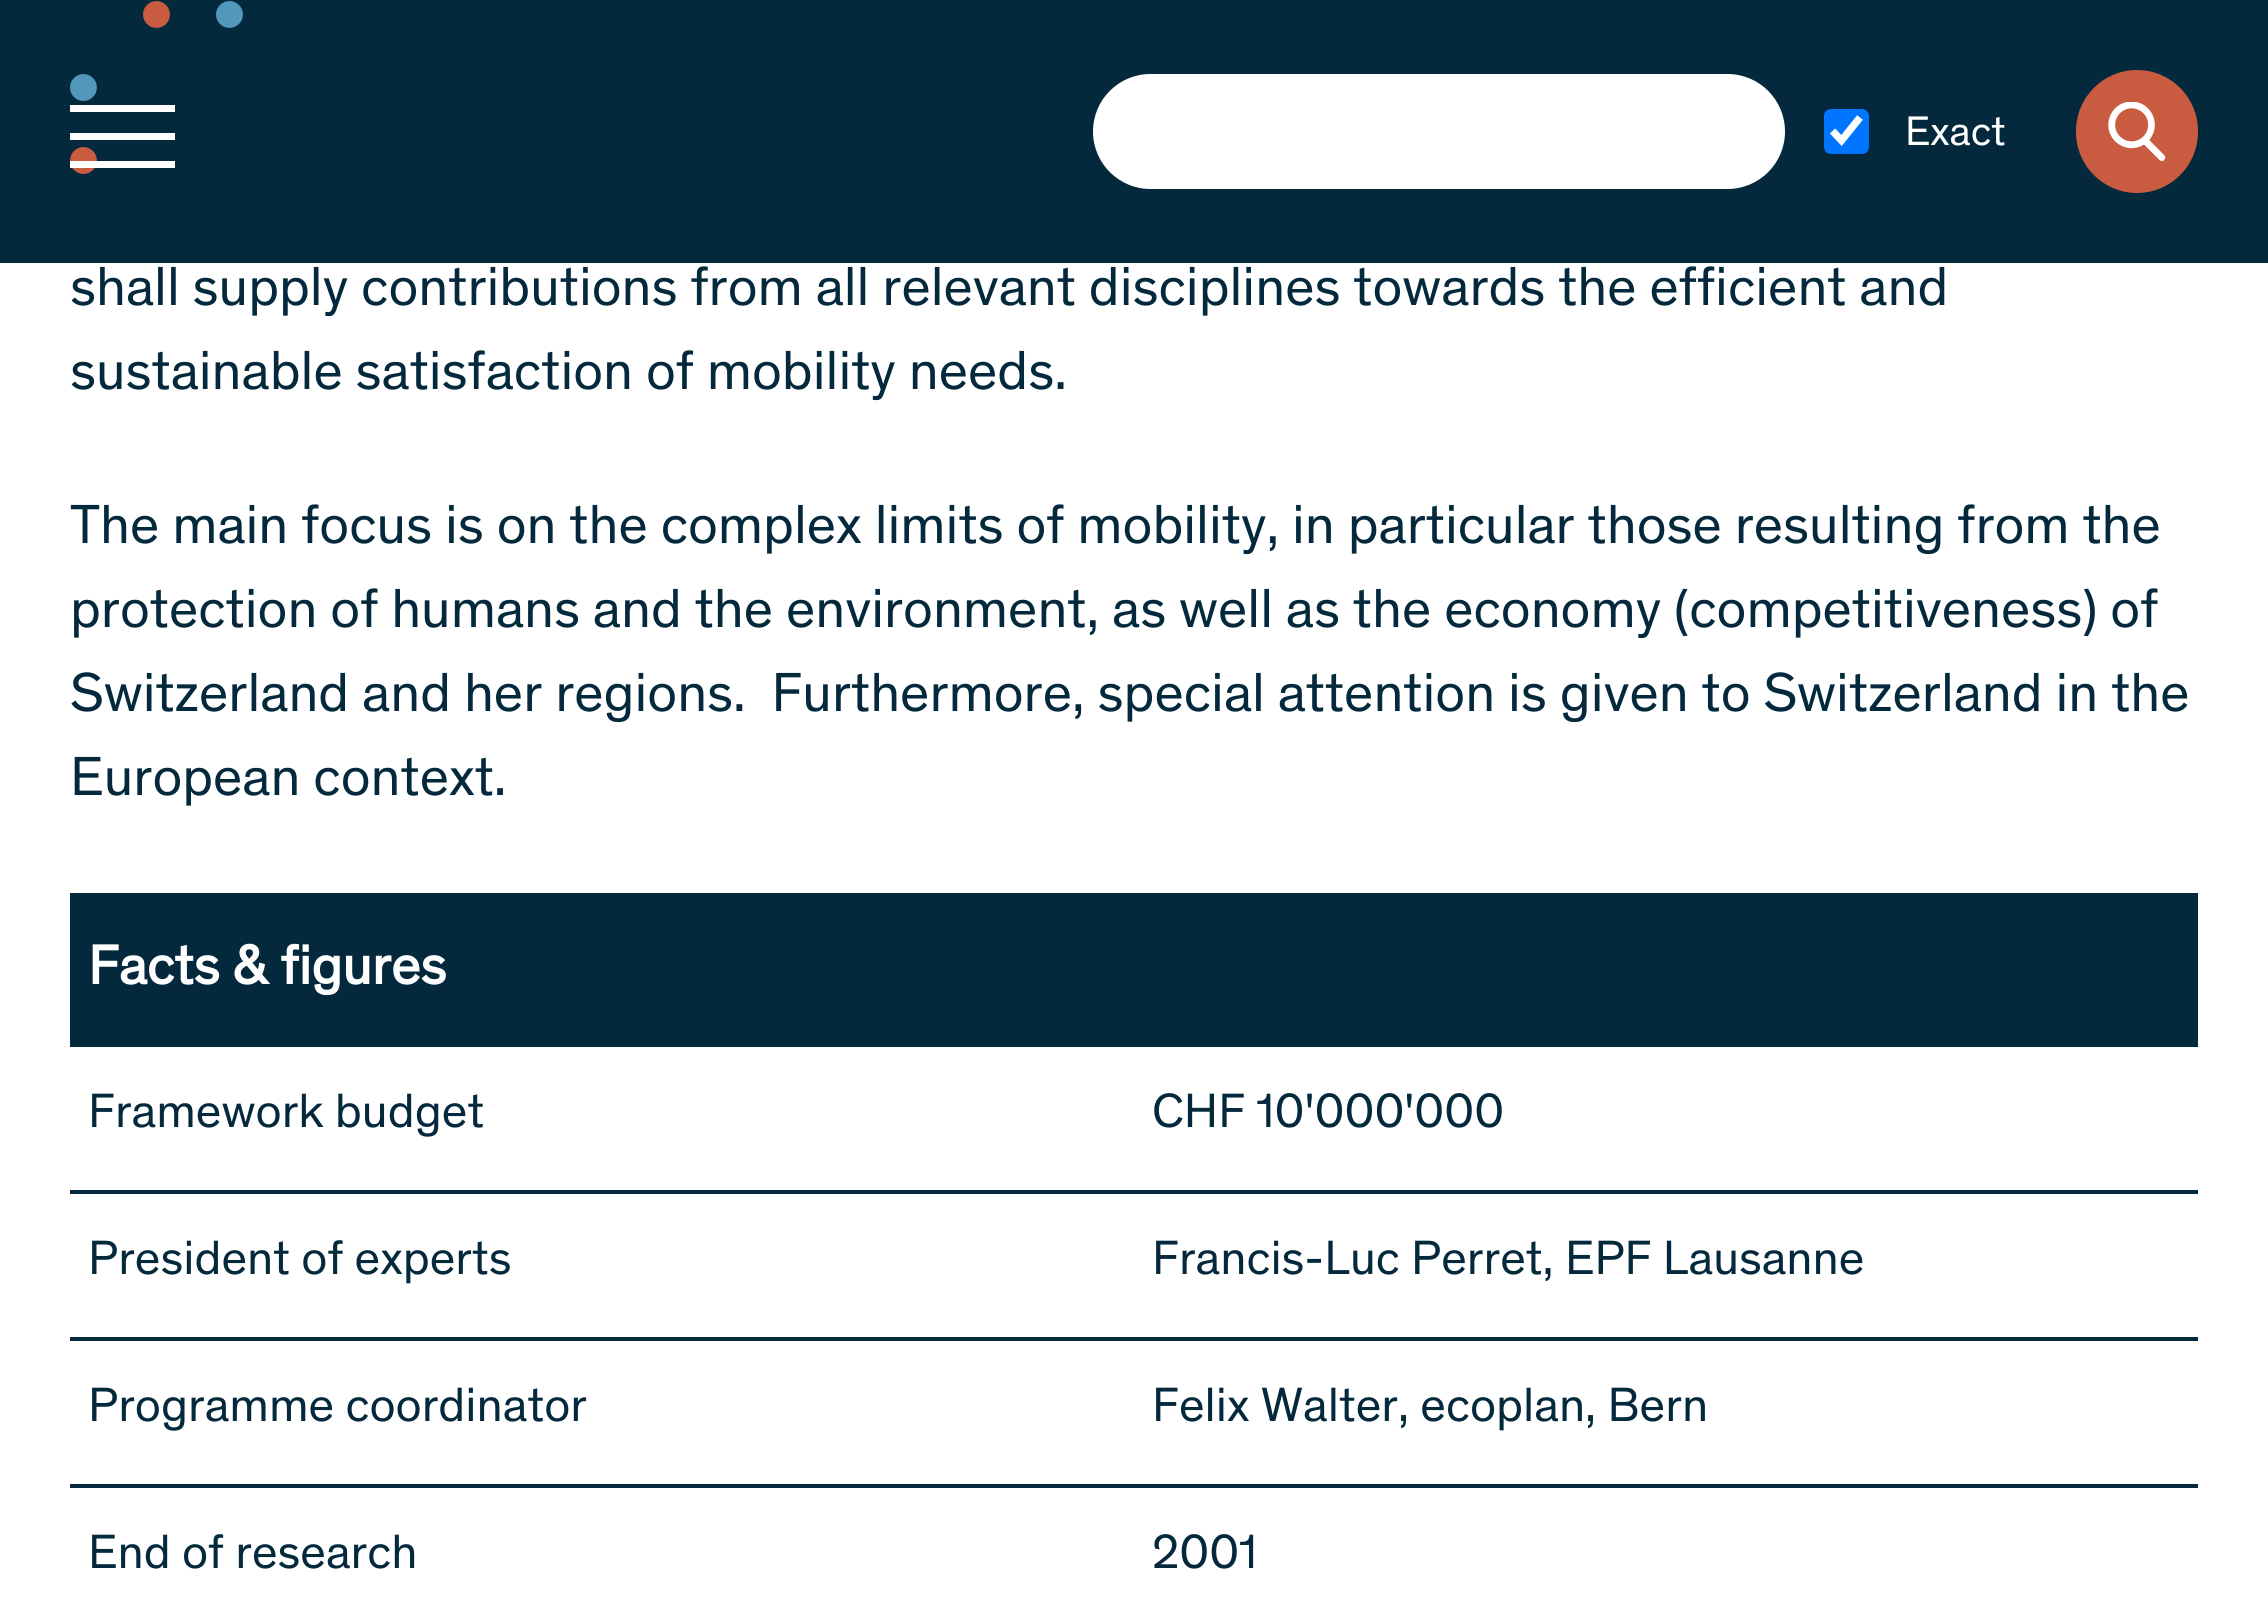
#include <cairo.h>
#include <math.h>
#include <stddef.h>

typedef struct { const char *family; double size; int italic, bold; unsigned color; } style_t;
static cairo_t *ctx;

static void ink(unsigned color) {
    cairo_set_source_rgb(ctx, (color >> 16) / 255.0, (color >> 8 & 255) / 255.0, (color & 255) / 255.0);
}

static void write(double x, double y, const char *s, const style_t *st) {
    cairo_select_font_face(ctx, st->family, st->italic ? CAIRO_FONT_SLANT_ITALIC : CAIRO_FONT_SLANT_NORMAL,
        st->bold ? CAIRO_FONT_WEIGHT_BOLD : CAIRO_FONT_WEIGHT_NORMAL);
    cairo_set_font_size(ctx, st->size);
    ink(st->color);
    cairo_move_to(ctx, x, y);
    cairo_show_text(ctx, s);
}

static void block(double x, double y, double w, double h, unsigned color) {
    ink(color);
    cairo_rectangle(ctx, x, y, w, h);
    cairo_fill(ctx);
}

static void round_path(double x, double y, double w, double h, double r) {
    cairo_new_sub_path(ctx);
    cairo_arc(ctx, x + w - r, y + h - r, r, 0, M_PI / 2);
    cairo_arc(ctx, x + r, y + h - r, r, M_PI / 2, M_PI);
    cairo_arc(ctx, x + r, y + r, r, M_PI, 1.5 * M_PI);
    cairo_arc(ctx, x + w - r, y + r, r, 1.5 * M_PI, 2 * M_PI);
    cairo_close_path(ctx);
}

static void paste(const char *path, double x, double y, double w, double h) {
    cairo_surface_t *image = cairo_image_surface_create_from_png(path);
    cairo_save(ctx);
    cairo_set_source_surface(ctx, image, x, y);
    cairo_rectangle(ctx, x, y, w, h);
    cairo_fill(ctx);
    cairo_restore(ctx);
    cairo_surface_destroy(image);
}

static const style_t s1 = {"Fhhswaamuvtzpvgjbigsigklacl", 42, 0, 0, 0xffffff};
static const style_t s2 = {"Fhhswaamuvtzpvgjbigsigklacl", 56, 0, 0, 0x04293c};
static const style_t s3 = {"Fhhswaamuvtzpvgjbigsigklacl", 56, 0, 1, 0xffffff};
static const style_t s4 = {"Fhhswaamuvtzpvgjbigsigklacl", 49, 0, 0, 0x04293c};

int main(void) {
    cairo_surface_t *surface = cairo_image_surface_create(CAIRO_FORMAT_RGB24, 2268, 1617);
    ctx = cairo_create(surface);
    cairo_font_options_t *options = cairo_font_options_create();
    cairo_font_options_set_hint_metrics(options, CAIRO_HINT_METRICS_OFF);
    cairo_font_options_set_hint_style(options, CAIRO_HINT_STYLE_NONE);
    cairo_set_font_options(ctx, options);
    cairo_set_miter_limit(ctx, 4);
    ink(0xffffff);
    cairo_paint(ctx);
    block(0, 0, 2268, 263, 0x04293c);
    paste("pic1.png", 70, 1, 173, 173);
    block(70, 133, 105, 7, 0xffffff);
    block(70, 105, 105, 7, 0xffffff);
    block(70, 161, 105, 7, 0xffffff);
    round_path(1091, 72, 696, 119, 59.5);
    cairo_fill_preserve(ctx);
    ink(0x04293c);
    cairo_set_line_width(ctx, 4);
    cairo_stroke(ctx);
    ink(0x0075ff);
    round_path(1824, 109, 45, 45, 7);
    cairo_fill(ctx);
    cairo_new_path(ctx);
    cairo_move_to(ctx, 1832.5, 131);
    cairo_line_to(ctx, 1841.5, 140.5);
    cairo_line_to(ctx, 1860, 117.5);
    ink(0xffffff);
    cairo_set_line_width(ctx, 7.3);
    cairo_stroke(ctx);
    write(1905, 145, "Exact", &s1);
    ink(0xc95b40);
    round_path(2076, 70, 122, 123, 61);
    cairo_fill(ctx);
    paste("pic2.png", 2108, 102, 58, 59);
    write(70, 305, "shall supply contributions from all relevant disciplines towards the efficient and", &s2);
    write(70, 389, "sustainable satisfaction of mobility needs.", &s2);
    write(70, 543, "The main focus is on the complex limits of mobility, in particular those resulting from the", &s2);
    write(70, 627, "protection of humans and the environment, as well as the economy (competitiveness) of", &s2);
    write(70, 711, "Switzerland and her regions.  Furthermore, special attention is given to Switzerland in the", &s2);
    write(70, 795, "European context.", &s2);
    block(70, 893, 2128, 154, 0x04293c);
    write(88, 984, "Facts & figures", &s3);
    write(88, 1127, "Framework budget", &s4);
    write(1152, 1127, "CHF 10'000'000", &s4);
    block(70, 1190, 2128, 4, 0x04293c);
    write(88, 1274, "President of experts", &s4);
    write(1152, 1274, "Francis-Luc Perret, EPF Lausanne", &s4);
    block(70, 1337, 2128, 4, 0x04293c);
    write(88, 1421, "Programme coordinator", &s4);
    write(1152, 1421, "Felix Walter, ecoplan, Bern", &s4);
    block(70, 1484, 2128, 4, 0x04293c);
    write(88, 1568, "End of research", &s4);
    write(1152, 1568, "2001", &s4);
    cairo_surface_write_to_png(surface, "screenshot.png");
    cairo_font_options_destroy(options);
    cairo_destroy(ctx);
    cairo_surface_destroy(surface);
    return 0;
}
